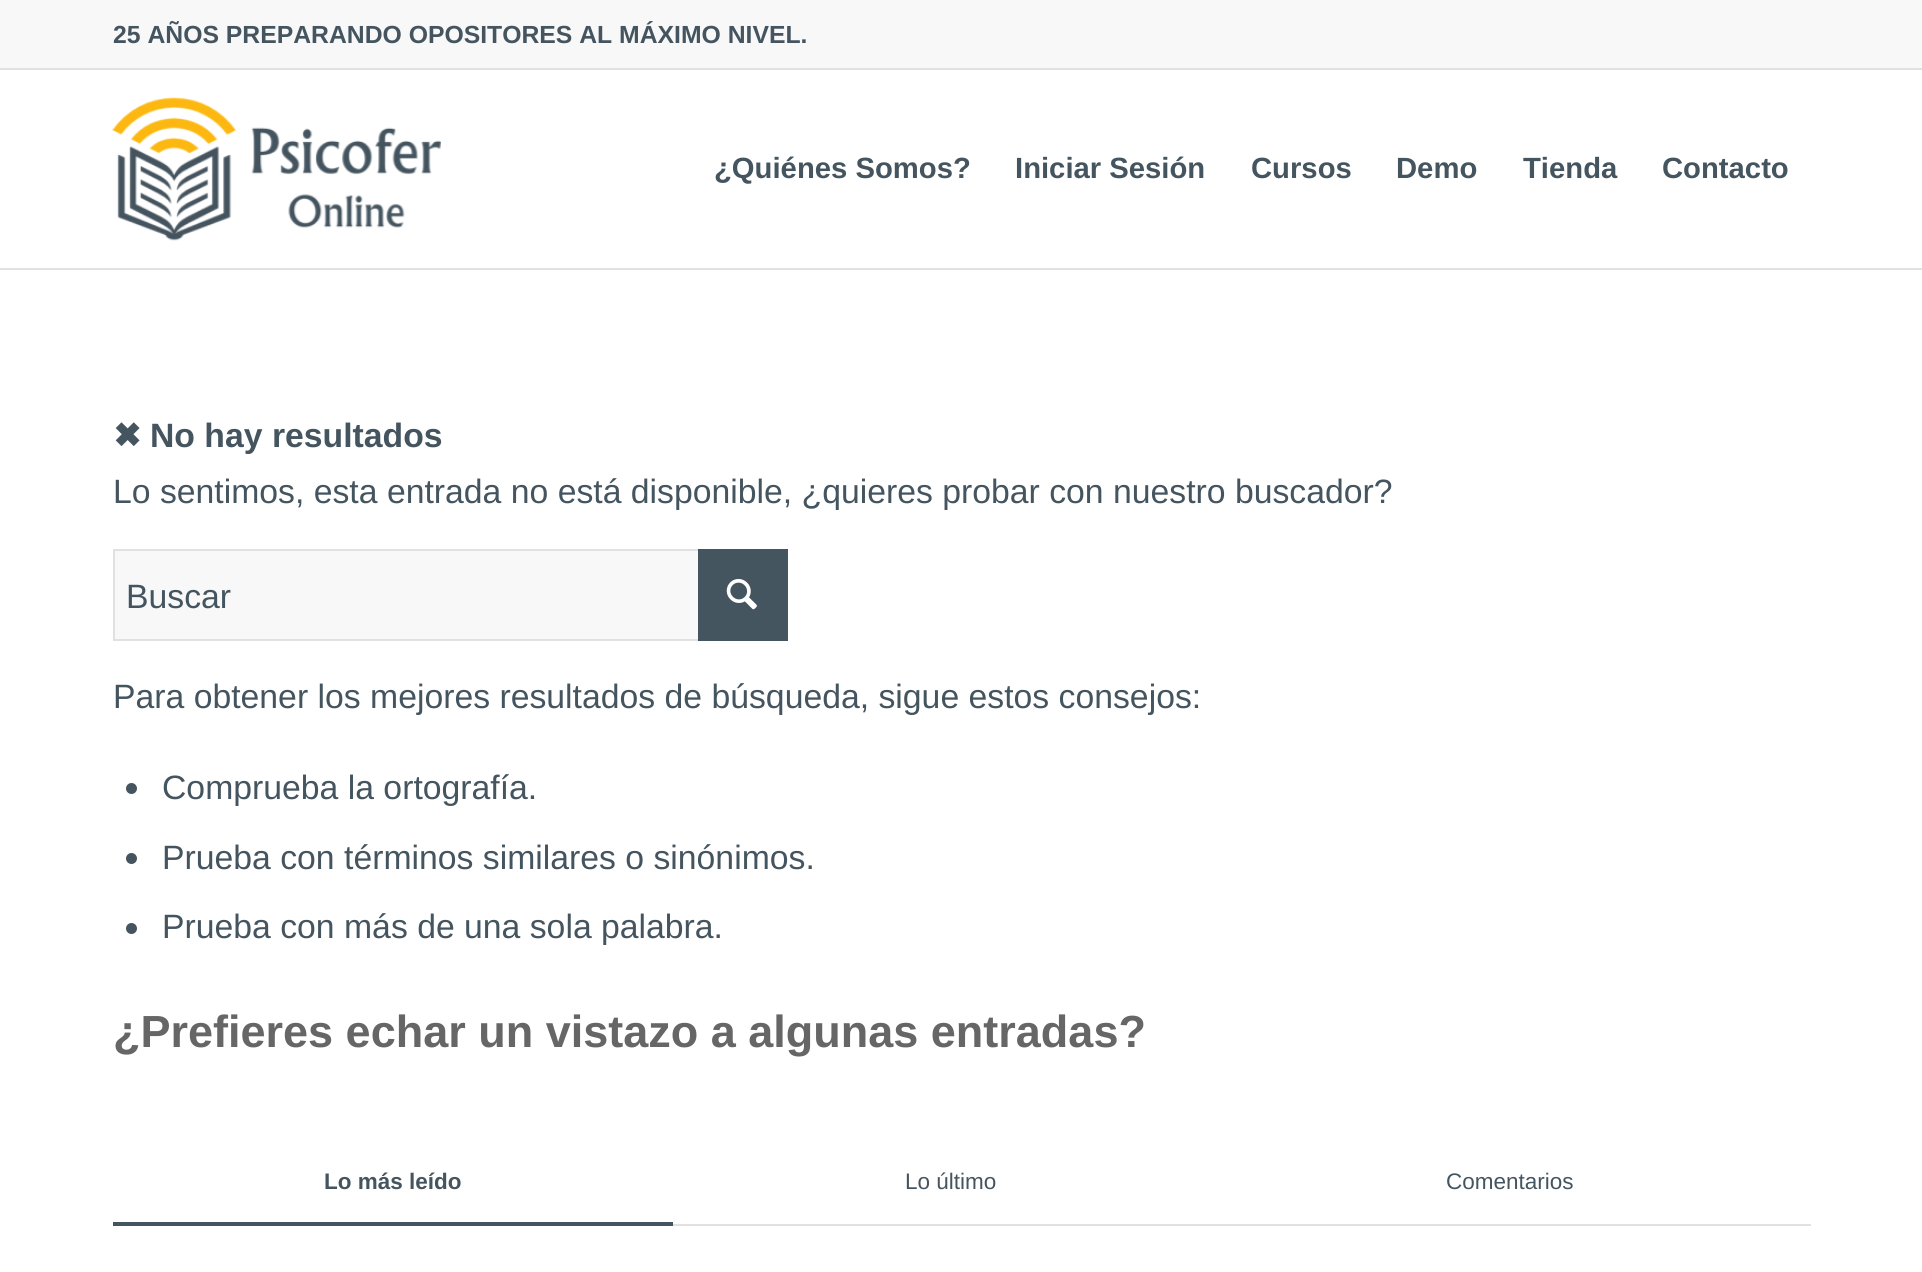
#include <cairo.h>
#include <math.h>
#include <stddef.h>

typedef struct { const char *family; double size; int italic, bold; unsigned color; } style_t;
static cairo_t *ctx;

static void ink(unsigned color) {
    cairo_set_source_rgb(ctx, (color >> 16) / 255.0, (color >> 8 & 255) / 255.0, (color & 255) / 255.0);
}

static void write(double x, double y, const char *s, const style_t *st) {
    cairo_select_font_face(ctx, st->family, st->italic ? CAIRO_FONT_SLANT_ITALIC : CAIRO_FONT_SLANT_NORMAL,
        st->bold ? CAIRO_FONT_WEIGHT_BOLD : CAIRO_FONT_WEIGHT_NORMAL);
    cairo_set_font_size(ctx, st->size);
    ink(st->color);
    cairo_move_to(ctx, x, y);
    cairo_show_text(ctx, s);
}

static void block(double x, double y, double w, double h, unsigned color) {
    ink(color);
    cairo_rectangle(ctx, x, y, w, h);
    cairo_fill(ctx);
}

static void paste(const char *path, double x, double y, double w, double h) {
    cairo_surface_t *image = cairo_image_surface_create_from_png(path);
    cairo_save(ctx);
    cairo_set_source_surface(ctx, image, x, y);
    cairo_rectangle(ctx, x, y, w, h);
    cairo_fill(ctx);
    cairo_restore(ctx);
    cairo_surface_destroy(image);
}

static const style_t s1 = {"Liberation Sans", 24.75, 0, 1, 0x455560};
static const style_t s2 = {"Liberation Sans", 29.25, 0, 1, 0x455560};
static const style_t s3 = {"DejaVu Sans", 33.75, 0, 1, 0x455560};
static const style_t s4 = {"Liberation Sans", 33.75, 0, 1, 0x455560};
static const style_t s5 = {"Liberation Sans", 33.75, 0, 0, 0x455560};
static const style_t s6 = {"Liberation Sans", 45, 0, 1, 0x666666};
static const style_t s7 = {"Liberation Sans", 22.5, 0, 1, 0x455560};
static const style_t s8 = {"Liberation Sans", 22.5, 0, 0, 0x455560};

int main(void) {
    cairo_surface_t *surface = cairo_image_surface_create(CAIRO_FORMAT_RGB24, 1922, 1272);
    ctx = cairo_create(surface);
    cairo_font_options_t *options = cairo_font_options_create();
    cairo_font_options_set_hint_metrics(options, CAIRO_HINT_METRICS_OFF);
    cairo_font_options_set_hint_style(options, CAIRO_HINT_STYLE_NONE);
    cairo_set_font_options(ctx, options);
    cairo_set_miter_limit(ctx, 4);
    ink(0xffffff);
    cairo_paint(ctx);
    block(0, 0, 1922, 68, 0xf8f8f8);
    block(0, 68, 1922, 2, 0xe1e1e1);
    write(113, 43, "25 AÑOS PREPARANDO OPOSITORES AL MÁXIMO NIVEL.", &s1);
    block(0, 268, 1922, 2, 0xe1e1e1);
    paste("pic1.png", 112, 97, 329, 144);
    write(714, 178, "¿Quiénes Somos?", &s2);
    write(1015, 178, "Iniciar Sesión", &s2);
    write(1251, 178, "Cursos", &s2);
    write(1396, 178, "Demo", &s2);
    write(1523, 178, "Tienda", &s2);
    write(1662, 178, "Contacto", &s2);
    write(113, 447, "✖", &s3);
    write(150, 447, "No hay resultados", &s4);
    write(113, 503, "Lo sentimos, esta entrada no está disponible, ¿quieres probar con nuestro buscador?", &s5);
    block(115, 551, 583, 88, 0xf8f8f8);
    cairo_rectangle(ctx, 114, 550, 673, 90);
    ink(0xe1e1e1);
    cairo_stroke(ctx);
    write(126, 608, "Buscar", &s5);
    block(698, 549, 90, 92, 0x455560);
    paste("pic2.png", 726, 579, 31, 31);
    write(113, 708, "Para obtener los mejores resultados de búsqueda, sigue estos consejos:", &s5);
    cairo_new_path(ctx);
    cairo_arc(ctx, 131.5, 788.5, 5.5, 0, 2 * M_PI);
    cairo_fill(ctx);
    write(162, 799, "Comprueba la ortografía.", &s5);
    cairo_new_path(ctx);
    cairo_arc(ctx, 131.5, 858.5, 5.5, 0, 2 * M_PI);
    cairo_fill(ctx);
    write(162, 869, "Prueba con términos similares o sinónimos.", &s5);
    cairo_new_path(ctx);
    cairo_arc(ctx, 131.5, 928.5, 5.5, 0, 2 * M_PI);
    cairo_fill(ctx);
    write(162, 938, "Prueba con más de una sola palabra.", &s5);
    write(113, 1047, "¿Prefieres echar un vistazo a algunas entradas?", &s6);
    block(673, 1224, 1138, 2, 0xe1e1e1);
    block(113, 1222, 560, 4, 0x455560);
    write(324, 1189, "Lo más leído", &s7);
    write(905, 1189, "Lo último", &s8);
    write(1446, 1189, "Comentarios", &s8);
    cairo_surface_write_to_png(surface, "screenshot.png");
    cairo_font_options_destroy(options);
    cairo_destroy(ctx);
    cairo_surface_destroy(surface);
    return 0;
}
